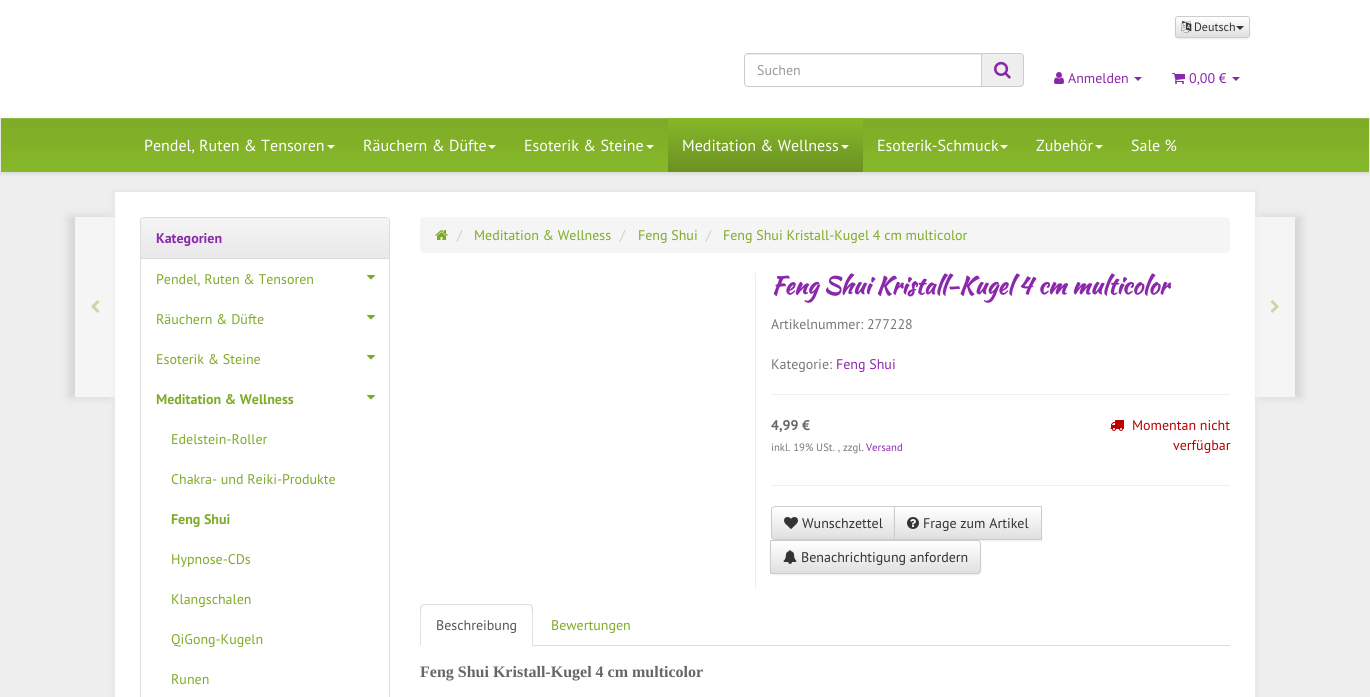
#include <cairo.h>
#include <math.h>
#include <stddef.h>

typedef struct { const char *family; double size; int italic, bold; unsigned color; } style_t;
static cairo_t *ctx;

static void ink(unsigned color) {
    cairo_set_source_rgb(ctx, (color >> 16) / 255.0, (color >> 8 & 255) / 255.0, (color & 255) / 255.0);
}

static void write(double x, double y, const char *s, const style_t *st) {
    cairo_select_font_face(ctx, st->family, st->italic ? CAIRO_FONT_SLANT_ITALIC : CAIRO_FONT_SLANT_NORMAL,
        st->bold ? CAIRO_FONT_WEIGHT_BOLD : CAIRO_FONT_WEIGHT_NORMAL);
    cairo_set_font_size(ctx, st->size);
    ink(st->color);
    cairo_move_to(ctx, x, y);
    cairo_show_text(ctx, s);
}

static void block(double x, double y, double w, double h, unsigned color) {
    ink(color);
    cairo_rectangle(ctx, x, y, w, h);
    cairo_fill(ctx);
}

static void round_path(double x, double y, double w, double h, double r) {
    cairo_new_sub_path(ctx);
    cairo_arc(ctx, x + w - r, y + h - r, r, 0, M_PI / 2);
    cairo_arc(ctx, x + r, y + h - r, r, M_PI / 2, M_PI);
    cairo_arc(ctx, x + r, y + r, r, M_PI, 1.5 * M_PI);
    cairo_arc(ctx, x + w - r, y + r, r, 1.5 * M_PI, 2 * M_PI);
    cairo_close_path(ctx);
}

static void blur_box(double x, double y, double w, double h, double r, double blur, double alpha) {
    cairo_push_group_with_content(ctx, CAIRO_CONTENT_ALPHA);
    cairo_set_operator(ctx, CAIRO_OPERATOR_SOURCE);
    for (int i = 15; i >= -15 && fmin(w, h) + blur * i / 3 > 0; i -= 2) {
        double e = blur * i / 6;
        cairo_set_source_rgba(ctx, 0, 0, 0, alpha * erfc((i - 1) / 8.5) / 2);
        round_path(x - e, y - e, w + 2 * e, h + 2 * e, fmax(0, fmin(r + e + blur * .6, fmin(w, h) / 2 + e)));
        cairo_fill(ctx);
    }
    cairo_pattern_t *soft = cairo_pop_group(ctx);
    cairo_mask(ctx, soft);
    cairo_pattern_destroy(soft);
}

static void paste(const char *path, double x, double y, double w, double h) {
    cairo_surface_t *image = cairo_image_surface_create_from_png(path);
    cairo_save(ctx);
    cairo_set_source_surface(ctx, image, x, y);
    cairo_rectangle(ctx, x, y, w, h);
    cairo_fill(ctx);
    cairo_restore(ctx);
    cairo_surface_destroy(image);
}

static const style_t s1 = {"PT Sans", 12, 0, 0, 0x333333};
static const style_t s2 = {"PT Sans", 14, 0, 0, 0x999999};
static const style_t s3 = {"PT Sans", 14, 0, 0, 0x8b27ab};
static const style_t s4 = {"PT Sans", 16, 0, 0, 0xffffff};
static const style_t s5 = {"PT Sans", 14, 0, 1, 0x8b27ab};
static const style_t s6 = {"PT Sans", 14, 0, 0, 0x7eab27};
static const style_t s7 = {"PT Sans", 14, 0, 1, 0x7eab27};
static const style_t s8 = {"PT Sans", 14, 0, 0, 0xcccccc};
static const style_t s9 = {"Kaushan Script", 24, 0, 1, 0x8b27ab};
static const style_t s10 = {"PT Sans", 14, 0, 0, 0x777777};
static const style_t s11 = {"PT Sans", 14, 0, 1, 0x666666};
static const style_t s12 = {"PT Sans", 10.75, 0, 0, 0x777777};
static const style_t s13 = {"PT Sans", 10.75, 0, 0, 0x8b27ab};
static const style_t s14 = {"PT Sans", 14, 0, 0, 0xb80000};
static const style_t s15 = {"PT Sans", 14, 0, 0, 0x333333};
static const style_t s16 = {"PT Sans", 14, 0, 0, 0x555555};
static const style_t s17 = {"Liberation Serif", 16, 0, 1, 0x666666};

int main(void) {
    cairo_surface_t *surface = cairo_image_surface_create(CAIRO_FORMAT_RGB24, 1370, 697);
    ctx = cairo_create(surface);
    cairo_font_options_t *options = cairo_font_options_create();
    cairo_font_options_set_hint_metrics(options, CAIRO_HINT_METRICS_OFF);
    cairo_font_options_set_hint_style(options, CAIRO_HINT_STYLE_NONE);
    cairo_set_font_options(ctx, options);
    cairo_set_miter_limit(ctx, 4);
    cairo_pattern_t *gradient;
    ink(0xeeeeee);
    cairo_paint(ctx);
    ink(0x6a6a6a);
    blur_box(-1, -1, 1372, 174, 0, 2.5, 0.1);
    block(0, 0, 1370, 118, 0xffffff);
    ink(0x000000);
    blur_box(1175, 17, 75, 22, 3, 0.5, 0.07);
    cairo_save(ctx);
    round_path(1175, 16, 75, 22, 3);
    cairo_clip(ctx);
    gradient = cairo_pattern_create_linear(1213, 17, 1213, 37);
    cairo_pattern_add_color_stop_rgba(gradient, 0, 1, 1, 1, 1);
    cairo_pattern_add_color_stop_rgba(gradient, 1, 0.878, 0.878, 0.878, 1);
    cairo_set_source(ctx, gradient);
    cairo_pattern_destroy(gradient);
    cairo_rectangle(ctx, 1175, 17, 75, 20);
    cairo_fill(ctx);
    cairo_restore(ctx);
    round_path(1175.5, 16.5, 74, 21, 2.5);
    ink(0xcccccc);
    cairo_set_line_width(ctx, 1);
    cairo_stroke(ctx);
    paste("pic1.png", 1181, 20, 11, 13);
    write(1194, 31, "Deutsch", &s1);
    cairo_new_path(ctx);
    cairo_move_to(ctx, 1236, 26);
    cairo_line_to(ctx, 1244, 26);
    cairo_line_to(ctx, 1240, 30);
    cairo_close_path(ctx);
    cairo_fill(ctx);
    ink(0xececec);
    cairo_new_path(ctx);
    cairo_move_to(ctx, 748, 55);
    cairo_line_to(ctx, 981, 55);
    cairo_line_to(ctx, 981, 54);
    cairo_line_to(ctx, 748, 54);
    cairo_curve_to(ctx, 746, 54, 745, 56, 745, 58);
    cairo_curve_to(ctx, 745, 56, 746, 55, 748, 55);
    cairo_close_path(ctx);
    cairo_fill(ctx);
    cairo_new_path(ctx);
    cairo_move_to(ctx, 748, 53.5);
    cairo_line_to(ctx, 981.5, 53.5);
    cairo_line_to(ctx, 981.5, 86.5);
    cairo_line_to(ctx, 748, 86.5);
    cairo_curve_to(ctx, 746, 86.5, 744.5, 85, 744.5, 83);
    cairo_line_to(ctx, 744.5, 57);
    cairo_curve_to(ctx, 744.5, 55, 746, 53.5, 748, 53.5);
    cairo_close_path(ctx);
    ink(0xcccccc);
    cairo_stroke(ctx);
    write(757, 75, "Suchen", &s2);
    ink(0xeeeeee);
    cairo_new_path(ctx);
    cairo_move_to(ctx, 982, 53);
    cairo_line_to(ctx, 1020, 53);
    cairo_curve_to(ctx, 1022, 53, 1024, 55, 1024, 57);
    cairo_line_to(ctx, 1024, 83);
    cairo_curve_to(ctx, 1024, 85, 1022, 87, 1020, 87);
    cairo_line_to(ctx, 982, 87);
    cairo_close_path(ctx);
    cairo_fill(ctx);
    ink(0xcccccc);
    cairo_set_fill_rule(ctx, CAIRO_FILL_RULE_EVEN_ODD);
    cairo_new_path(ctx);
    cairo_move_to(ctx, 982, 53);
    cairo_line_to(ctx, 1020, 53);
    cairo_curve_to(ctx, 1022, 53, 1024, 55, 1024, 57);
    cairo_line_to(ctx, 1024, 83);
    cairo_curve_to(ctx, 1024, 85, 1022, 87, 1020, 87);
    cairo_line_to(ctx, 982, 87);
    cairo_close_path(ctx);
    cairo_move_to(ctx, 982, 54);
    cairo_line_to(ctx, 1020, 54);
    cairo_curve_to(ctx, 1022, 54, 1023, 55, 1023, 57);
    cairo_line_to(ctx, 1023, 83);
    cairo_curve_to(ctx, 1023, 85, 1022, 86, 1020, 86);
    cairo_line_to(ctx, 982, 86);
    cairo_close_path(ctx);
    cairo_fill(ctx);
    paste("pic2.png", 994, 61, 17, 18);
    paste("pic3.png", 1054, 72, 10, 12);
    write(1068, 83, "Anmelden", &s3);
    cairo_set_fill_rule(ctx, CAIRO_FILL_RULE_WINDING);
    cairo_new_path(ctx);
    cairo_move_to(ctx, 1134, 77);
    cairo_line_to(ctx, 1142, 77);
    cairo_line_to(ctx, 1138, 81);
    cairo_close_path(ctx);
    cairo_fill(ctx);
    paste("pic4.png", 1172, 73, 13, 11);
    write(1189, 83, "0,00 €", &s3);
    cairo_new_path(ctx);
    cairo_move_to(ctx, 1232, 77);
    cairo_line_to(ctx, 1240, 77);
    cairo_line_to(ctx, 1236, 81);
    cairo_close_path(ctx);
    cairo_fill(ctx);
    ink(0x000000);
    blur_box(0, 119, 1370, 54, 0, 2.5, 0.07);
    gradient = cairo_pattern_create_linear(685, 118, 685, 172);
    cairo_pattern_add_color_stop_rgba(gradient, 0, 0.494, 0.671, 0.153, 1);
    cairo_pattern_add_color_stop_rgba(gradient, 1, 0.529, 0.722, 0.165, 1);
    cairo_set_source(ctx, gradient);
    cairo_pattern_destroy(gradient);
    cairo_rectangle(ctx, 1, 119, 1368, 53);
    cairo_fill(ctx);
    block(1, 118, 1368, 1, 0x91b847);
    block(1369, 118, 1, 54, 0xe7e7e7);
    block(0, 118, 1, 54, 0xe7e7e7);
    write(144, 151, "Pendel, Ruten & Tensoren", &s4);
    cairo_new_path(ctx);
    cairo_move_to(ctx, 327, 145);
    cairo_line_to(ctx, 335, 145);
    cairo_line_to(ctx, 331, 149);
    cairo_close_path(ctx);
    cairo_fill(ctx);
    write(363, 151, "Räuchern & Düfte", &s4);
    cairo_new_path(ctx);
    cairo_move_to(ctx, 488, 145);
    cairo_line_to(ctx, 496, 145);
    cairo_line_to(ctx, 492, 149);
    cairo_close_path(ctx);
    cairo_fill(ctx);
    write(524, 151, "Esoterik & Steine", &s4);
    cairo_new_path(ctx);
    cairo_move_to(ctx, 646, 145);
    cairo_line_to(ctx, 654, 145);
    cairo_line_to(ctx, 650, 149);
    cairo_close_path(ctx);
    cairo_fill(ctx);
    gradient = cairo_pattern_create_linear(766, 118, 766, 172);
    cairo_pattern_add_color_stop_rgba(gradient, 0, 0.529, 0.722, 0.165, 1);
    cairo_pattern_add_color_stop_rgba(gradient, 1, 0.42, 0.569, 0.129, 1);
    cairo_set_source(ctx, gradient);
    cairo_pattern_destroy(gradient);
    cairo_rectangle(ctx, 668, 118, 195, 54);
    cairo_fill(ctx);
    write(682, 151, "Meditation & Wellness", &s4);
    cairo_new_path(ctx);
    cairo_move_to(ctx, 841, 145);
    cairo_line_to(ctx, 849, 145);
    cairo_line_to(ctx, 845, 149);
    cairo_close_path(ctx);
    cairo_fill(ctx);
    write(877, 151, "Esoterik-Schmuck", &s4);
    cairo_new_path(ctx);
    cairo_move_to(ctx, 1000, 145);
    cairo_line_to(ctx, 1008, 145);
    cairo_line_to(ctx, 1004, 149);
    cairo_close_path(ctx);
    cairo_fill(ctx);
    write(1036, 151, "Zubehör", &s4);
    cairo_new_path(ctx);
    cairo_move_to(ctx, 1095, 145);
    cairo_line_to(ctx, 1103, 145);
    cairo_line_to(ctx, 1099, 149);
    cairo_close_path(ctx);
    cairo_fill(ctx);
    write(1131, 151, "Sale %", &s4);
    ink(0x6a6a6a);
    blur_box(114, 191, 1142, 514, 0, 2.5, 0.1);
    block(115, 192, 1140, 505, 0xffffff);
    cairo_save(ctx);
    cairo_set_fill_rule(ctx, CAIRO_FILL_RULE_EVEN_ODD);
    cairo_new_path(ctx);
    cairo_move_to(ctx, 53, 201);
    cairo_line_to(ctx, 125, 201);
    cairo_line_to(ctx, 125, 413);
    cairo_line_to(ctx, 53, 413);
    cairo_close_path(ctx);
    cairo_move_to(ctx, 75, 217);
    cairo_line_to(ctx, 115, 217);
    cairo_line_to(ctx, 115, 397);
    cairo_line_to(ctx, 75, 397);
    cairo_close_path(ctx);
    cairo_clip(ctx);
    ink(0x000000);
    blur_box(69, 217, 40, 180, 0, 5, 0.12);
    cairo_restore(ctx);
    cairo_set_source_rgba(ctx, 1, 1, 1, 0.4);
    cairo_rectangle(ctx, 75, 217, 40, 180);
    cairo_fill(ctx);
    paste("pic5.png", 91, 300, 9, 13);
    round_path(140.5, 217.5, 249, 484, 3.5);
    ink(0xdddddd);
    cairo_stroke(ctx);
    gradient = cairo_pattern_create_linear(265, 218, 265, 258);
    cairo_pattern_add_color_stop_rgba(gradient, 0, 0.961, 0.961, 0.961, 1);
    cairo_pattern_add_color_stop_rgba(gradient, 1, 0.91, 0.91, 0.91, 1);
    cairo_set_source(ctx, gradient);
    cairo_pattern_destroy(gradient);
    cairo_new_path(ctx);
    cairo_move_to(ctx, 144, 218);
    cairo_line_to(ctx, 386, 218);
    cairo_curve_to(ctx, 387.5, 218, 389, 219.5, 389, 221);
    cairo_line_to(ctx, 389, 258);
    cairo_line_to(ctx, 141, 258);
    cairo_line_to(ctx, 141, 221);
    cairo_curve_to(ctx, 141, 219.5, 142.5, 218, 144, 218);
    cairo_close_path(ctx);
    cairo_fill(ctx);
    block(141, 258, 248, 1, 0xdddddd);
    write(156, 243, "Kategorien", &s5);
    write(156, 284, "Pendel, Ruten & Tensoren", &s6);
    paste("pic6.png", 367, 275, 8, 5);
    write(156, 324, "Räuchern & Düfte", &s6);
    paste("pic6.png", 367, 315, 8, 5);
    write(156, 364, "Esoterik & Steine", &s6);
    paste("pic6.png", 367, 355, 8, 5);
    write(156, 404, "Meditation & Wellness", &s7);
    paste("pic6.png", 367, 395, 8, 5);
    write(171, 444, "Edelstein-Roller", &s6);
    write(171, 484, "Chakra- und Reiki-Produkte", &s6);
    write(171, 524, "Feng Shui", &s7);
    write(171, 564, "Hypnose-CDs", &s6);
    write(171, 604, "Klangschalen", &s6);
    write(171, 644, "QiGong-Kugeln", &s6);
    write(171, 684, "Runen", &s6);
    ink(0xf5f5f5);
    round_path(420, 217, 810, 36, 4);
    cairo_fill(ctx);
    paste("pic7.png", 435, 230, 13, 10);
    write(457, 240, "/", &s8);
    write(474, 240, "Meditation & Wellness", &s6);
    write(620, 240, "/", &s8);
    write(638, 240, "Feng Shui", &s6);
    write(706, 240, "/", &s8);
    write(723, 240, "Feng Shui Kristall-Kugel 4 cm multicolor", &s6);
    block(755, 273, 1, 316, 0xeeeeee);
    write(771, 294, "Feng Shui Kristall-Kugel 4 cm multicolor", &s9);
    write(771, 329, "Artikelnummer: 277228", &s10);
    write(771, 369, "Kategorie:", &s10);
    write(836, 369, "Feng Shui", &s3);
    block(771, 394, 459, 1, 0xeeeeee);
    write(771, 430, "4,99 €", &s11);
    write(771, 451, "inkl. 19% USt. , zzgl.", &s12);
    write(866, 451, "Versand", &s13);
    paste("pic8.png", 1110, 420, 14, 11);
    write(1132, 430, "Momentan nicht", &s14);
    write(1173, 450, "verfügbar", &s14);
    block(771, 485, 459, 1, 0xeeeeee);
    ink(0x000000);
    blur_box(771, 507, 124, 34, 4, 0.5, 0.07);
    cairo_save(ctx);
    cairo_new_path(ctx);
    cairo_move_to(ctx, 775, 506);
    cairo_line_to(ctx, 895, 506);
    cairo_line_to(ctx, 895, 540);
    cairo_line_to(ctx, 775, 540);
    cairo_curve_to(ctx, 773, 540, 771, 538, 771, 536);
    cairo_line_to(ctx, 771, 510);
    cairo_curve_to(ctx, 771, 508, 773, 506, 775, 506);
    cairo_close_path(ctx);
    cairo_clip(ctx);
    gradient = cairo_pattern_create_linear(833, 507, 833, 539);
    cairo_pattern_add_color_stop_rgba(gradient, 0, 1, 1, 1, 1);
    cairo_pattern_add_color_stop_rgba(gradient, 1, 0.878, 0.878, 0.878, 1);
    cairo_set_source(ctx, gradient);
    cairo_pattern_destroy(gradient);
    cairo_rectangle(ctx, 771, 507, 123, 32);
    cairo_fill(ctx);
    cairo_restore(ctx);
    cairo_new_path(ctx);
    cairo_move_to(ctx, 775, 506.5);
    cairo_line_to(ctx, 894.5, 506.5);
    cairo_line_to(ctx, 894.5, 539.5);
    cairo_line_to(ctx, 775, 539.5);
    cairo_curve_to(ctx, 773, 539.5, 771.5, 538, 771.5, 536);
    cairo_line_to(ctx, 771.5, 510);
    cairo_curve_to(ctx, 771.5, 508, 773, 506.5, 775, 506.5);
    cairo_close_path(ctx);
    ink(0xcccccc);
    cairo_stroke(ctx);
    paste("pic9.png", 784, 517, 14, 12);
    write(802, 528, "Wunschzettel", &s15);
    ink(0x000000);
    blur_box(894, 507, 148, 34, 0, 0.5, 0.07);
    gradient = cairo_pattern_create_linear(968, 507, 968, 539);
    cairo_pattern_add_color_stop_rgba(gradient, 0, 1, 1, 1, 1);
    cairo_pattern_add_color_stop_rgba(gradient, 1, 0.878, 0.878, 0.878, 1);
    cairo_set_source(ctx, gradient);
    cairo_pattern_destroy(gradient);
    cairo_rectangle(ctx, 895, 507, 146, 32);
    cairo_fill(ctx);
    cairo_rectangle(ctx, 894.5, 506.5, 147, 33);
    ink(0xcccccc);
    cairo_stroke(ctx);
    paste("pic10.png", 907, 517, 12, 12);
    write(923, 528, "Frage zum Artikel", &s15);
    ink(0x000000);
    blur_box(770, 541, 211, 34, 4, 0.5, 0.07);
    cairo_save(ctx);
    cairo_new_path(ctx);
    cairo_move_to(ctx, 770, 540);
    cairo_line_to(ctx, 977, 540);
    cairo_curve_to(ctx, 979, 540, 981, 542, 981, 544);
    cairo_line_to(ctx, 981, 570);
    cairo_curve_to(ctx, 981, 572, 979, 574, 977, 574);
    cairo_line_to(ctx, 770, 574);
    cairo_close_path(ctx);
    cairo_clip(ctx);
    gradient = cairo_pattern_create_linear(876, 541, 876, 573);
    cairo_pattern_add_color_stop_rgba(gradient, 0, 1, 1, 1, 1);
    cairo_pattern_add_color_stop_rgba(gradient, 1, 0.878, 0.878, 0.878, 1);
    cairo_set_source(ctx, gradient);
    cairo_pattern_destroy(gradient);
    cairo_rectangle(ctx, 771, 541, 210, 32);
    cairo_fill(ctx);
    cairo_restore(ctx);
    cairo_new_path(ctx);
    cairo_move_to(ctx, 770.5, 540.5);
    cairo_line_to(ctx, 977, 540.5);
    cairo_curve_to(ctx, 979, 540.5, 980.5, 542, 980.5, 544);
    cairo_line_to(ctx, 980.5, 570);
    cairo_curve_to(ctx, 980.5, 572, 979, 573.5, 977, 573.5);
    cairo_line_to(ctx, 770.5, 573.5);
    cairo_close_path(ctx);
    ink(0xcccccc);
    cairo_stroke(ctx);
    paste("pic11.png", 783, 550, 14, 14);
    write(801, 562, "Benachrichtigung anfordern", &s15);
    block(533, 645, 697, 1, 0xdddddd);
    cairo_new_path(ctx);
    cairo_move_to(ctx, 424, 604);
    cairo_line_to(ctx, 421, 605);
    cairo_line_to(ctx, 422, 606);
    cairo_line_to(ctx, 424, 605);
    cairo_line_to(ctx, 529, 605);
    cairo_line_to(ctx, 531, 606);
    cairo_line_to(ctx, 532, 605);
    cairo_line_to(ctx, 529, 604);
    cairo_close_path(ctx);
    cairo_fill(ctx);
    cairo_new_path(ctx);
    cairo_move_to(ctx, 533, 646);
    cairo_line_to(ctx, 533, 608);
    cairo_curve_to(ctx, 533, 607, 532, 606, 532, 605);
    cairo_line_to(ctx, 531, 606);
    cairo_curve_to(ctx, 533, 608, 532, 640, 532, 645);
    cairo_close_path(ctx);
    cairo_fill(ctx);
    cairo_new_path(ctx);
    cairo_move_to(ctx, 420, 646);
    cairo_line_to(ctx, 421, 645);
    cairo_curve_to(ctx, 421, 640, 420, 608, 422, 606);
    cairo_line_to(ctx, 421, 605);
    cairo_line_to(ctx, 420, 608);
    cairo_close_path(ctx);
    cairo_fill(ctx);
    write(436, 630, "Beschreibung", &s16);
    write(551, 630, "Bewertungen", &s6);
    write(420, 677, "Feng Shui Kristall-Kugel 4 cm multicolor", &s17);
    cairo_save(ctx);
    cairo_set_fill_rule(ctx, CAIRO_FILL_RULE_EVEN_ODD);
    cairo_new_path(ctx);
    cairo_move_to(ctx, 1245, 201);
    cairo_line_to(ctx, 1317, 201);
    cairo_line_to(ctx, 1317, 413);
    cairo_line_to(ctx, 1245, 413);
    cairo_close_path(ctx);
    cairo_move_to(ctx, 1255, 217);
    cairo_line_to(ctx, 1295, 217);
    cairo_line_to(ctx, 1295, 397);
    cairo_line_to(ctx, 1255, 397);
    cairo_close_path(ctx);
    cairo_clip(ctx);
    ink(0x000000);
    blur_box(1261, 217, 40, 180, 0, 5, 0.12);
    cairo_restore(ctx);
    cairo_set_source_rgba(ctx, 1, 1, 1, 0.4);
    cairo_rectangle(ctx, 1255, 217, 40, 180);
    cairo_fill(ctx);
    paste("pic12.png", 1270, 300, 9, 13);
    cairo_surface_write_to_png(surface, "screenshot.png");
    cairo_font_options_destroy(options);
    cairo_destroy(ctx);
    cairo_surface_destroy(surface);
    return 0;
}
